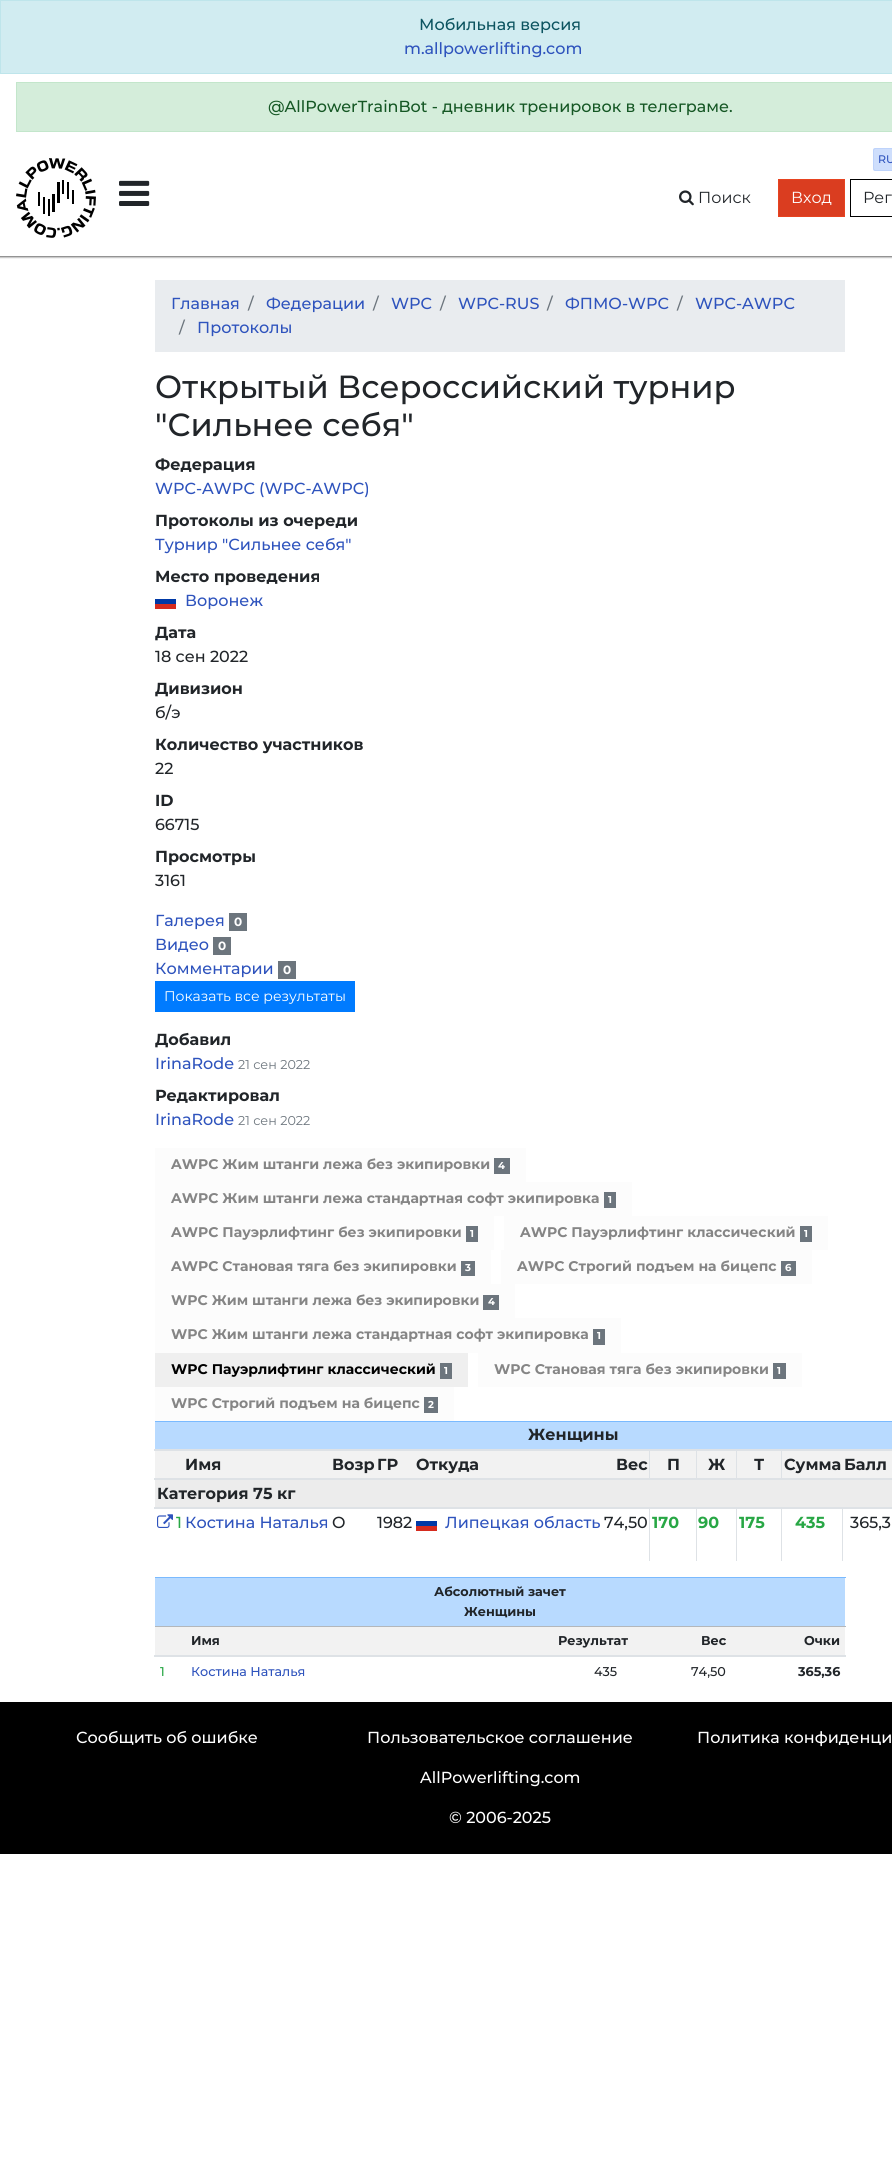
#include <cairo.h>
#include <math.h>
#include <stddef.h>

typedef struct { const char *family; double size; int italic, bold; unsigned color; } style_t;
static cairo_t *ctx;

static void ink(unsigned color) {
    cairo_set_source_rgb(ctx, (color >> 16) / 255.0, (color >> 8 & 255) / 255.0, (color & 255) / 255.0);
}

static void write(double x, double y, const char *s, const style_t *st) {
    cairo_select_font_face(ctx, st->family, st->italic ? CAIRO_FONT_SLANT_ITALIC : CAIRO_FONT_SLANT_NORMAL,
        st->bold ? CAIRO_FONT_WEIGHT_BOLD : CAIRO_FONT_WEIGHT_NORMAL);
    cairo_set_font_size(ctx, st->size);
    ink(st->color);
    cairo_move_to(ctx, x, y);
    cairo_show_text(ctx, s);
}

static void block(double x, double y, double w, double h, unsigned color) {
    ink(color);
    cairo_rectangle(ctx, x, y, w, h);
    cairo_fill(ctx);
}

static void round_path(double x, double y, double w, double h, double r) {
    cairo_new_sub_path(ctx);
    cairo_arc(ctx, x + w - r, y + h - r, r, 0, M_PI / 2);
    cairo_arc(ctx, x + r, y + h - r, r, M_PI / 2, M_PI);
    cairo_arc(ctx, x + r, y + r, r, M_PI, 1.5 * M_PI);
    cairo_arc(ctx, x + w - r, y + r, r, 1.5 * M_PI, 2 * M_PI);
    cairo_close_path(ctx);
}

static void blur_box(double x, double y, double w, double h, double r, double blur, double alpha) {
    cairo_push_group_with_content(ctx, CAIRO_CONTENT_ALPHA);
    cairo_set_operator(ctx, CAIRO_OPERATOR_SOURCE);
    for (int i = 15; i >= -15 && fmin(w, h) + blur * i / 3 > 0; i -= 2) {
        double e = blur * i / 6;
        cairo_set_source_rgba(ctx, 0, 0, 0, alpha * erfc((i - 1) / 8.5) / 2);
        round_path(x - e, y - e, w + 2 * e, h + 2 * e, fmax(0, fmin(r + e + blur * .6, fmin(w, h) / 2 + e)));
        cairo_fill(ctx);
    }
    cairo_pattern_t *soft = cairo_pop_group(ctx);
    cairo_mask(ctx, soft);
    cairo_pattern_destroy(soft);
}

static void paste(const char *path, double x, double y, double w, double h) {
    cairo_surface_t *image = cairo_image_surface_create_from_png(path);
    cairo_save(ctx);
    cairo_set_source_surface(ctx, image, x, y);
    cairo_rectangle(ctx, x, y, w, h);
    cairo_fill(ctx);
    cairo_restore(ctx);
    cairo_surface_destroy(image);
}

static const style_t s1 = {"Montserrat Medium", 16, 0, 0, 0x0c5460};
static const style_t s2 = {"Montserrat Medium", 16, 0, 0, 0x2e53bd};
static const style_t s3 = {"Montserrat Medium", 16, 0, 0, 0x155724};
static const style_t s4 = {"Montserrat Medium", 11, 0, 0, 0x2e53bd};
static const style_t s5 = {"Montserrat", 16, 0, 0, 0x212529};
static const style_t s6 = {"Montserrat", 16, 0, 0, 0xffffff};
static const style_t s7 = {"Montserrat Medium", 16, 0, 0, 0x6c757d};
static const style_t s8 = {"Montserrat Medium", 32, 0, 0, 0x212529};
static const style_t s9 = {"Montserrat", 16, 0, 1, 0x212529};
static const style_t s10 = {"Montserrat Medium", 16, 0, 0, 0x212529};
static const style_t s11 = {"Montserrat", 12, 0, 1, 0xffffff};
static const style_t s12 = {"Montserrat", 14, 0, 0, 0xffffff};
static const style_t s13 = {"Montserrat", 12.75, 0, 0, 0x6c757d};
static const style_t s14 = {"Montserrat", 14, 0, 1, 0x858585};
static const style_t s15 = {"Montserrat", 10, 0, 1, 0xffffff};
static const style_t s16 = {"Montserrat", 14, 0, 1, 0x000000};
static const style_t s17 = {"Montserrat Medium", 16, 0, 0, 0x28a745};
static const style_t s18 = {"Montserrat", 16, 0, 1, 0x28a745};
static const style_t s19 = {"Montserrat", 12.75, 0, 1, 0x212529};
static const style_t s20 = {"Montserrat Medium", 12.75, 0, 0, 0x28a745};
static const style_t s21 = {"Montserrat Medium", 12.75, 0, 0, 0x2e53bd};
static const style_t s22 = {"Montserrat Medium", 12.75, 0, 0, 0x212529};
static const style_t s23 = {"Montserrat Medium", 16, 0, 0, 0xffffff};

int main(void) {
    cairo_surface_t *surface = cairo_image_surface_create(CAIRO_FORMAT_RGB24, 892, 2157);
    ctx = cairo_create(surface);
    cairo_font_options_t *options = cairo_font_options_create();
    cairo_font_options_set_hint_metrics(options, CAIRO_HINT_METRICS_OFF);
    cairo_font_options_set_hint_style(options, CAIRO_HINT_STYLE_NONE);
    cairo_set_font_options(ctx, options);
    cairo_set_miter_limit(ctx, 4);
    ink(0xffffff);
    cairo_paint(ctx);
    cairo_save(ctx);
    cairo_rectangle(ctx, 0, 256, 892, 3);
    cairo_clip(ctx);
    ink(0x000000);
    blur_box(-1, 73, 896, 184, 0, 1, 0.6);
    cairo_restore(ctx);
    ink(0xd1ecf1);
    cairo_rectangle(ctx, 0.5, 0.5, 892, 73);
    cairo_fill_preserve(ctx);
    ink(0xbee5eb);
    cairo_set_line_width(ctx, 1);
    cairo_stroke(ctx);
    write(419, 30, "Мобильная версия", &s1);
    write(404, 54, "m.allpowerlifting.com", &s2);
    ink(0xd4edda);
    cairo_rectangle(ctx, 16.5, 82.5, 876, 49);
    cairo_fill_preserve(ctx);
    ink(0xc3e6cb);
    cairo_stroke(ctx);
    write(268, 112, "@AllPowerTrainBot - дневник тренировок в телеграме.", &s3);
    paste("pic1.png", 16, 158, 80, 80);
    paste("pic2.png", 119, 180, 31, 26);
    round_path(873.5, 148.5, 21, 22, 1.5);
    ink(0xbed3fb);
    cairo_stroke(ctx);
    cairo_set_source_rgba(ctx, 0.361, 0.565, 0.961, 0.3);
    cairo_rectangle(ctx, 874, 149, 18, 21);
    cairo_fill(ctx);
    write(878, 163, "RU", &s4);
    paste("pic3.png", 679, 190, 15, 16);
    write(698, 203, "Поиск", &s5);
    ink(0xda3d20);
    cairo_rectangle(ctx, 778.5, 179.5, 66, 37);
    cairo_fill_preserve(ctx);
    ink(0xe74320);
    cairo_stroke(ctx);
    write(791, 203, "Вход", &s6);
    cairo_rectangle(ctx, 850.5, 179.5, 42, 37);
    ink(0x000000);
    cairo_stroke(ctx);
    write(863, 203, "Рег", &s5);
    block(155, 280, 690, 72, 0xe9ecef);
    write(171, 309, "Главная", &s2);
    write(248, 309, "/", &s7);
    write(266, 309, "Федерации", &s2);
    write(373, 309, "/", &s7);
    write(391, 309, "WPC", &s2);
    write(440, 309, "/", &s7);
    write(458, 309, "WPC-RUS", &s2);
    write(547, 309, "/", &s7);
    write(565, 309, "ФПМО-WPC", &s2);
    write(677, 309, "/", &s7);
    write(695, 309, "WPC-AWPC", &s2);
    write(179, 333, "/", &s7);
    write(197, 333, "Протоколы", &s2);
    write(155, 398, "Открытый Всероссийский турнир", &s8);
    write(155, 436, "\"Сильнее себя\"", &s8);
    write(155, 470, "Федерация", &s9);
    write(155, 494, "WPC-AWPC (WPC-AWPC)", &s2);
    write(155, 526, "Протоколы из очереди", &s9);
    write(155, 550, "Турнир \"Сильнее себя\"", &s2);
    write(155, 582, "Место проведения", &s9);
    block(155, 599, 21, 5, 0x0039a6);
    block(155, 604, 21, 5, 0xd52b1e);
    write(185, 606, "Воронеж", &s2);
    write(155, 638, "Дата", &s9);
    write(155, 662, "18 сен 2022", &s10);
    write(155, 694, "Дивизион", &s9);
    write(155, 718, "б/э", &s10);
    write(155, 750, "Количество участников", &s9);
    write(155, 774, "22", &s10);
    write(155, 806, "ID", &s9);
    write(155, 830, "66715", &s10);
    write(155, 862, "Просмотры", &s9);
    write(155, 886, "3161", &s10);
    write(155, 926, "Галерея", &s2);
    block(229, 913, 18, 18, 0x6c757d);
    write(234, 926, "0", &s11);
    write(155, 950, "Видео", &s2);
    block(213, 937, 18, 18, 0x6c757d);
    write(218, 950, "0", &s11);
    write(155, 974, "Комментарии", &s2);
    block(278, 961, 18, 18, 0x6c757d);
    write(283, 974, "0", &s11);
    block(155, 981, 200, 31, 0x007bff);
    write(164, 1001, "Показать все результаты", &s12);
    write(155, 1045, "Добавил", &s9);
    write(155, 1069, "IrinaRode", &s2);
    write(238, 1069, "21 сен 2022", &s13);
    write(155, 1101, "Редактировал", &s9);
    write(155, 1125, "IrinaRode", &s2);
    write(238, 1125, "21 сен 2022", &s13);
    block(155, 1148, 371, 34, 0xfcfcfc);
    write(171, 1169, "AWPC Жим штанги лежа без экипировки", &s14);
    block(494, 1158, 16, 16, 0x6c757d);
    write(498, 1169, "4", &s15);
    block(155, 1182, 477, 34, 0xfcfcfc);
    write(171, 1203, "AWPC Жим штанги лежа стандартная софт экипировка", &s14);
    block(604, 1192, 12, 16, 0x6c757d);
    write(608, 1203, "1", &s15);
    block(155, 1216, 339, 34, 0xfcfcfc);
    write(171, 1237, "AWPC Пауэрлифтинг без экипировки", &s14);
    block(466, 1226, 12, 16, 0x6c757d);
    write(470, 1237, "1", &s15);
    block(504, 1216, 324, 34, 0xfcfcfc);
    write(520, 1237, "AWPC Пауэрлифтинг классический", &s14);
    block(800, 1226, 12, 16, 0x6c757d);
    write(804, 1237, "1", &s15);
    block(155, 1250, 336, 34, 0xfcfcfc);
    write(171, 1271, "AWPC Становая тяга без экипировки", &s14);
    block(461, 1261, 14, 15, 0x6c757d);
    write(465, 1271, "3", &s15);
    block(501, 1250, 311, 34, 0xfcfcfc);
    write(517, 1271, "AWPC Строгий подъем на бицепс", &s14);
    block(781, 1261, 15, 15, 0x6c757d);
    write(785, 1271, "6", &s15);
    block(155, 1284, 360, 34, 0xfcfcfc);
    write(171, 1305, "WPC Жим штанги лежа без экипировки", &s14);
    block(483, 1295, 16, 15, 0x6c757d);
    write(488, 1305, "4", &s15);
    block(155, 1318, 466, 35, 0xfcfcfc);
    write(171, 1339, "WPC Жим штанги лежа стандартная софт экипировка", &s14);
    block(593, 1329, 12, 16, 0x6c757d);
    write(597, 1339, "1", &s15);
    block(155, 1353, 313, 34, 0xefefef);
    write(171, 1374, "WPC Пауэрлифтинг классический", &s16);
    block(440, 1363, 12, 16, 0x6c757d);
    write(444, 1374, "1", &s15);
    block(478, 1353, 324, 34, 0xfcfcfc);
    write(494, 1374, "WPC Становая тяга без экипировки", &s14);
    block(773, 1363, 13, 16, 0x6c757d);
    write(777, 1374, "1", &s15);
    block(155, 1387, 299, 34, 0xfcfcfc);
    write(171, 1408, "WPC Строгий подъем на бицепс", &s14);
    block(424, 1397, 14, 16, 0x6c757d);
    write(428, 1408, "2", &s15);
    block(155, 1422, 737, 27, 0xb8daff);
    block(155, 1421, 737, 1, 0x7abaff);
    block(155, 1451, 737, 27, 0xf2f2f2);
    block(649, 1449, 1, 31, 0xdee2e6);
    block(696, 1449, 1, 31, 0xdee2e6);
    block(736, 1449, 1, 31, 0xdee2e6);
    block(781, 1449, 1, 31, 0xdee2e6);
    block(154, 1449, 738, 2, 0xdee2e6);
    write(528, 1440, "Женщины", &s9);
    write(185, 1470, "Имя", &s9);
    write(332, 1470, "Возр", &s9);
    write(377, 1470, "ГР", &s9);
    write(416, 1470, "Откуда", &s9);
    write(616, 1470, "Вес", &s9);
    write(667, 1470, "П", &s9);
    write(708, 1470, "Ж", &s9);
    write(754, 1470, "Т", &s9);
    write(784, 1470, "Сумма", &s9);
    block(154, 1478, 738, 2, 0xdee2e6);
    write(844, 1470, "Балл", &s9);
    block(155, 1480, 737, 27, 0xececec);
    block(649, 1508, 1, 53, 0xdee2e6);
    block(696, 1508, 1, 53, 0xdee2e6);
    block(736, 1508, 1, 53, 0xdee2e6);
    block(781, 1508, 1, 53, 0xdee2e6);
    block(842, 1508, 1, 53, 0xdee2e6);
    block(154, 1507, 738, 2, 0xdee2e6);
    write(157, 1499, "Категория 75 кг", &s9);
    paste("pic4.png", 157, 1514, 16, 14);
    write(176, 1528, "1", &s17);
    write(185, 1528, "Костина Наталья", &s2);
    write(332, 1528, "O", &s10);
    write(377, 1528, "1982", &s10);
    block(416, 1521, 21, 5, 0x0039a6);
    block(416, 1526, 21, 5, 0xd52b1e);
    write(445, 1528, "Липецкая область", &s2);
    write(604, 1528, "74,50", &s10);
    write(652, 1528, "170", &s18);
    write(698, 1528, "90", &s18);
    write(739, 1528, "175", &s18);
    write(795, 1528, "435", &s18);
    write(850, 1528, "365,3", &s10);
    block(155, 1578, 690, 48, 0xb8daff);
    block(155, 1577, 691, 1, 0x7abaff);
    write(434, 1596, "Абсолютный зачет", &s19);
    write(464, 1616, "Женщины", &s19);
    block(155, 1627, 690, 28, 0xf2f2f2);
    write(191, 1645, "Имя", &s19);
    write(558, 1645, "Результат", &s19);
    write(701, 1645, "Вес", &s19);
    block(155, 1626, 691, 1, 0xb3b7bb);
    block(154, 1655, 692, 2, 0xdee2e6);
    write(804, 1645, "Очки", &s19);
    write(160, 1676, "1", &s20);
    write(191, 1676, "Костина Наталья", &s21);
    write(594, 1676, "435", &s22);
    write(691, 1676, "74,50", &s22);
    write(798, 1676, "365,36", &s19);
    block(0, 1702, 892, 152, 0x000000);
    write(76, 1743, "Сообщить об ошибке", &s23);
    write(367, 1743, "Пользовательское соглашение", &s23);
    write(697, 1743, "Политика конфиденци", &s23);
    write(420, 1783, "AllPowerlifting.com", &s23);
    write(449, 1823, "© 2006-2025", &s23);
    cairo_surface_write_to_png(surface, "screenshot.png");
    cairo_font_options_destroy(options);
    cairo_destroy(ctx);
    cairo_surface_destroy(surface);
    return 0;
}
